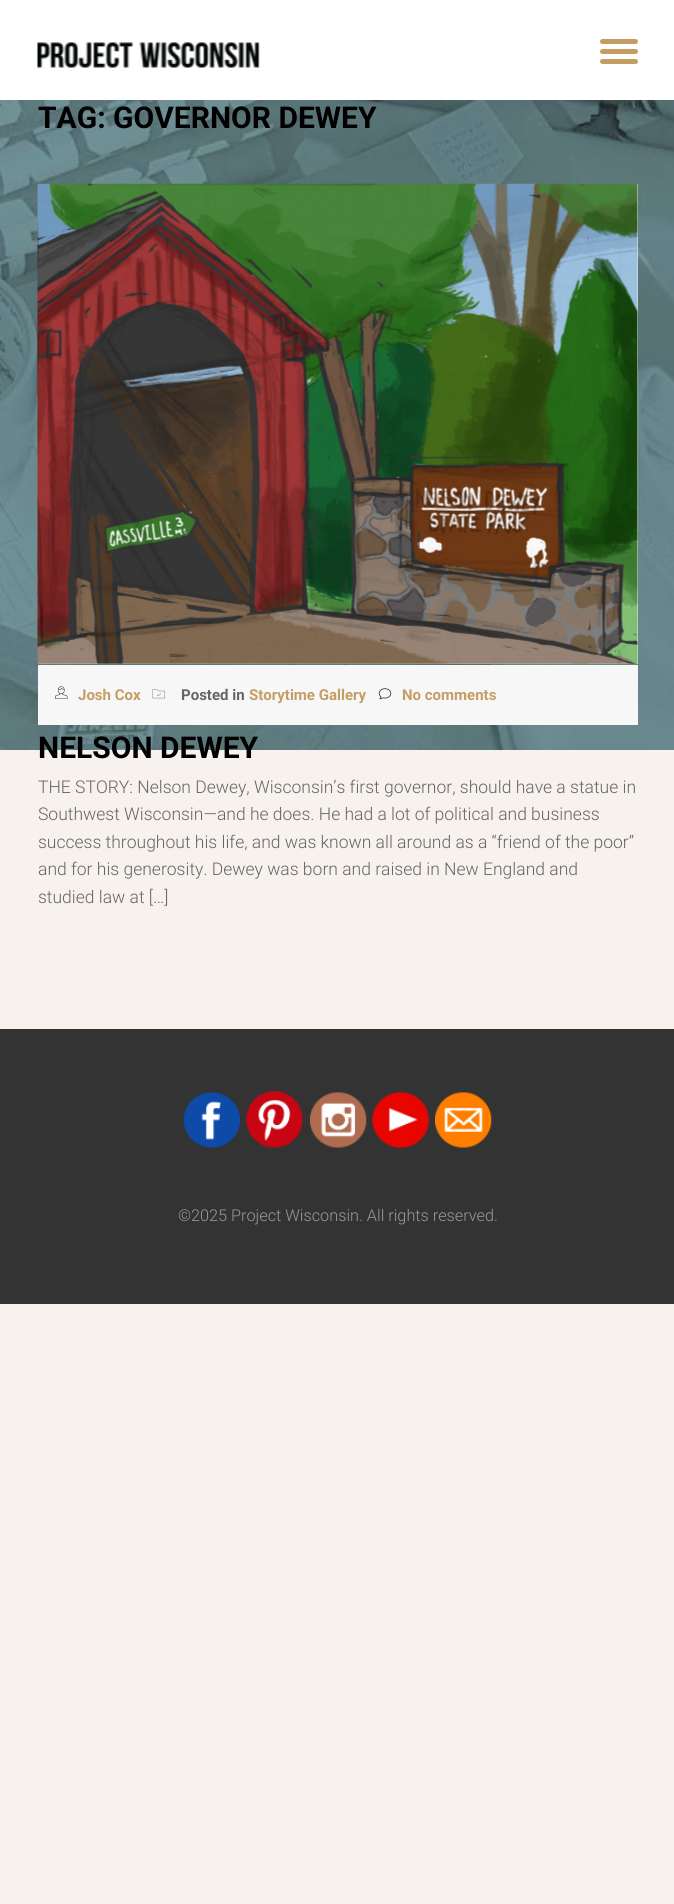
#include <cairo.h>
#include <math.h>
#include <stddef.h>

typedef struct { const char *family; double size; int italic, bold; unsigned color; } style_t;
static cairo_t *ctx;

static void ink(unsigned color) {
    cairo_set_source_rgb(ctx, (color >> 16) / 255.0, (color >> 8 & 255) / 255.0, (color & 255) / 255.0);
}

static void write(double x, double y, const char *s, const style_t *st) {
    cairo_select_font_face(ctx, st->family, st->italic ? CAIRO_FONT_SLANT_ITALIC : CAIRO_FONT_SLANT_NORMAL,
        st->bold ? CAIRO_FONT_WEIGHT_BOLD : CAIRO_FONT_WEIGHT_NORMAL);
    cairo_set_font_size(ctx, st->size);
    ink(st->color);
    cairo_move_to(ctx, x, y);
    cairo_show_text(ctx, s);
}

static void block(double x, double y, double w, double h, unsigned color) {
    ink(color);
    cairo_rectangle(ctx, x, y, w, h);
    cairo_fill(ctx);
}

static void round_path(double x, double y, double w, double h, double r) {
    cairo_new_sub_path(ctx);
    cairo_arc(ctx, x + w - r, y + h - r, r, 0, M_PI / 2);
    cairo_arc(ctx, x + r, y + h - r, r, M_PI / 2, M_PI);
    cairo_arc(ctx, x + r, y + r, r, M_PI, 1.5 * M_PI);
    cairo_arc(ctx, x + w - r, y + r, r, 1.5 * M_PI, 2 * M_PI);
    cairo_close_path(ctx);
}

static void paste(const char *path, double x, double y, double w, double h) {
    cairo_surface_t *image = cairo_image_surface_create_from_png(path);
    cairo_save(ctx);
    cairo_set_source_surface(ctx, image, x, y);
    cairo_rectangle(ctx, x, y, w, h);
    cairo_fill(ctx);
    cairo_restore(ctx);
    cairo_surface_destroy(image);
}

static const style_t s1 = {"Roboto", 30, 0, 1, 0x000000};
static const style_t s2 = {"Roboto", 15, 0, 1, 0xc49d64};
static const style_t s3 = {"Roboto", 15, 0, 1, 0x656565};
static const style_t s4 = {"Roboto Light", 17.5, 0, 0, 0x656565};
static const style_t s5 = {"Roboto Light", 16.25, 0, 0, 0x999999};

int main(void) {
    cairo_surface_t *surface = cairo_image_surface_create(CAIRO_FORMAT_RGB24, 674, 1904);
    ctx = cairo_create(surface);
    cairo_font_options_t *options = cairo_font_options_create();
    cairo_font_options_set_hint_metrics(options, CAIRO_HINT_METRICS_OFF);
    cairo_font_options_set_hint_style(options, CAIRO_HINT_STYLE_NONE);
    cairo_set_font_options(ctx, options);
    cairo_set_miter_limit(ctx, 4);
    ink(0xf7f2ed);
    cairo_paint(ctx);
    paste("pic1.png", 0, 100, 674, 650);
    block(0, 0, 674, 100, 0xffffff);
    paste("pic2.png", 37, 42, 223, 26);
    ink(0xc49d64);
    round_path(600, 39, 38, 5, 2.5);
    cairo_fill(ctx);
    round_path(600, 49, 38, 5, 2.5);
    cairo_fill(ctx);
    round_path(600, 59, 38, 5, 2.5);
    cairo_fill(ctx);
    write(38, 128, "TAG: GOVERNOR DEWEY", &s1);
    block(38, 184, 600, 480, 0xeaeaea);
    paste("pic3.png", 37, 183, 601, 481);
    block(38, 665, 600, 60, 0xf7f7f7);
    paste("pic4.png", 55, 686, 13, 13);
    write(78, 700, "Josh Cox", &s2);
    paste("pic5.png", 152, 689, 13, 10);
    write(181, 700, "Posted in", &s3);
    write(249, 700, "Storytime Gallery", &s2);
    paste("pic6.png", 378, 688, 14, 12);
    write(402, 700, "No comments", &s2);
    write(38, 758, "NELSON DEWEY", &s1);
    write(38, 793, "THE STORY: Nelson Dewey, Wisconsin’s first governor, should have a statue in", &s4);
    write(38, 820, "Southwest Wisconsin—and he does. He had a lot of political and business", &s4);
    write(38, 848, "success throughout his life, and was known all around as a “friend of the poor”", &s4);
    write(38, 875, "and for his generosity. Dewey was born and raised in New England and", &s4);
    write(38, 903, "studied law at […]", &s4);
    block(0, 1029, 674, 275, 0x333333);
    paste("pic7.png", 183, 1092, 57, 56);
    paste("pic8.png", 246, 1091, 57, 57);
    paste("pic9.png", 310, 1092, 57, 56);
    paste("pic10.png", 372, 1092, 57, 56);
    paste("pic11.png", 435, 1092, 57, 56);
    write(178, 1221, "©2025 Project Wisconsin. All rights reserved.", &s5);
    cairo_surface_write_to_png(surface, "screenshot.png");
    cairo_font_options_destroy(options);
    cairo_destroy(ctx);
    cairo_surface_destroy(surface);
    return 0;
}
